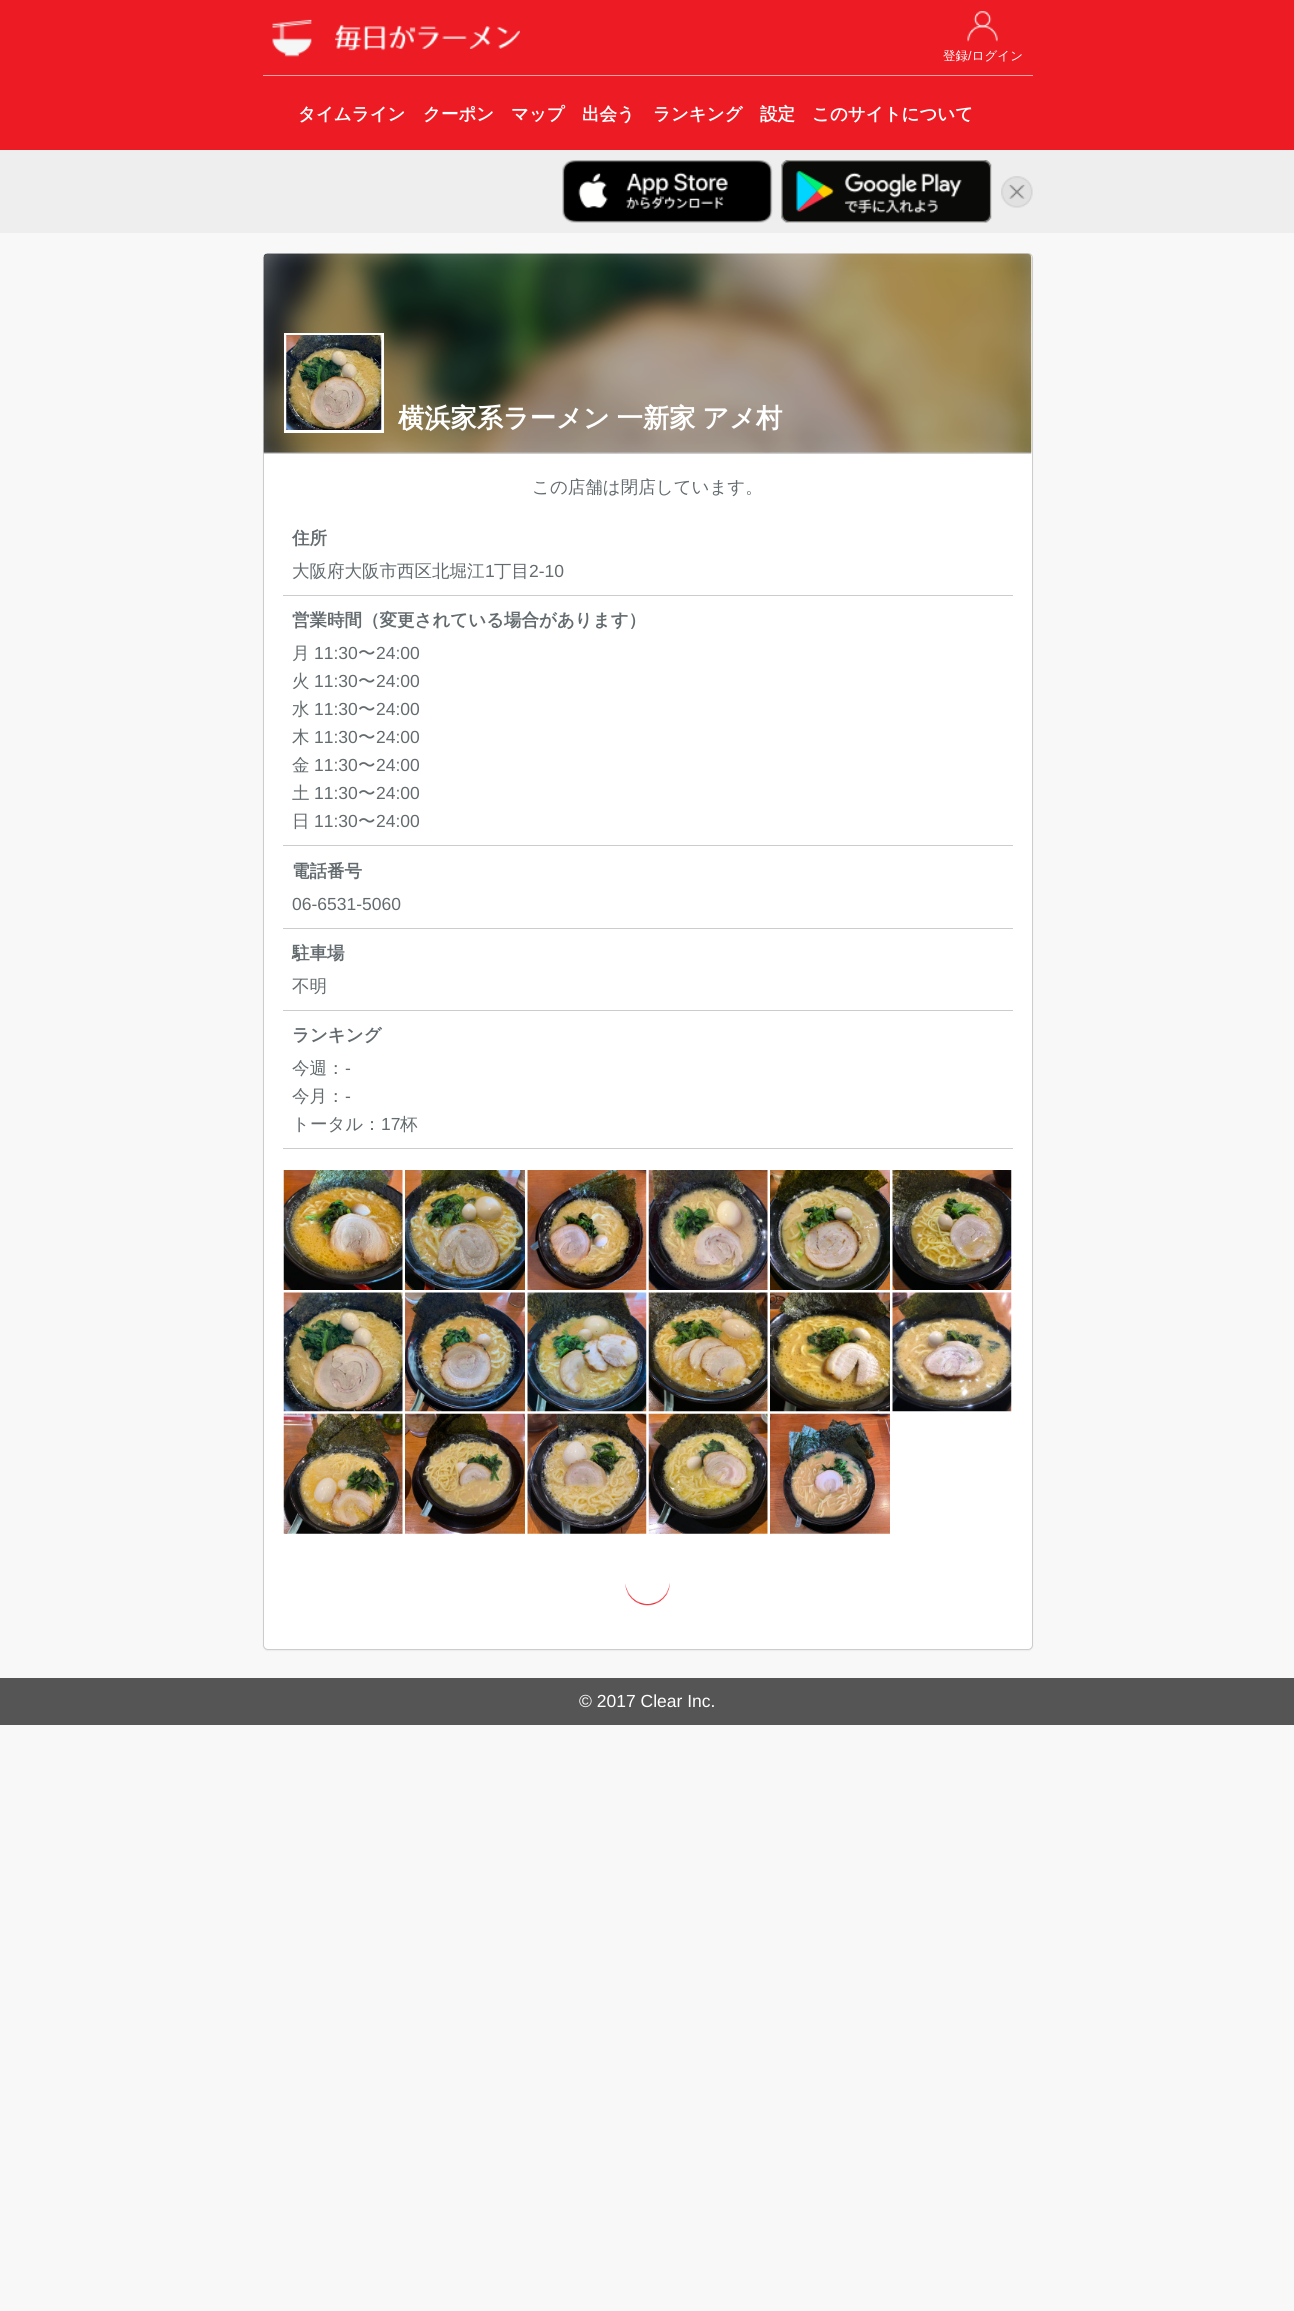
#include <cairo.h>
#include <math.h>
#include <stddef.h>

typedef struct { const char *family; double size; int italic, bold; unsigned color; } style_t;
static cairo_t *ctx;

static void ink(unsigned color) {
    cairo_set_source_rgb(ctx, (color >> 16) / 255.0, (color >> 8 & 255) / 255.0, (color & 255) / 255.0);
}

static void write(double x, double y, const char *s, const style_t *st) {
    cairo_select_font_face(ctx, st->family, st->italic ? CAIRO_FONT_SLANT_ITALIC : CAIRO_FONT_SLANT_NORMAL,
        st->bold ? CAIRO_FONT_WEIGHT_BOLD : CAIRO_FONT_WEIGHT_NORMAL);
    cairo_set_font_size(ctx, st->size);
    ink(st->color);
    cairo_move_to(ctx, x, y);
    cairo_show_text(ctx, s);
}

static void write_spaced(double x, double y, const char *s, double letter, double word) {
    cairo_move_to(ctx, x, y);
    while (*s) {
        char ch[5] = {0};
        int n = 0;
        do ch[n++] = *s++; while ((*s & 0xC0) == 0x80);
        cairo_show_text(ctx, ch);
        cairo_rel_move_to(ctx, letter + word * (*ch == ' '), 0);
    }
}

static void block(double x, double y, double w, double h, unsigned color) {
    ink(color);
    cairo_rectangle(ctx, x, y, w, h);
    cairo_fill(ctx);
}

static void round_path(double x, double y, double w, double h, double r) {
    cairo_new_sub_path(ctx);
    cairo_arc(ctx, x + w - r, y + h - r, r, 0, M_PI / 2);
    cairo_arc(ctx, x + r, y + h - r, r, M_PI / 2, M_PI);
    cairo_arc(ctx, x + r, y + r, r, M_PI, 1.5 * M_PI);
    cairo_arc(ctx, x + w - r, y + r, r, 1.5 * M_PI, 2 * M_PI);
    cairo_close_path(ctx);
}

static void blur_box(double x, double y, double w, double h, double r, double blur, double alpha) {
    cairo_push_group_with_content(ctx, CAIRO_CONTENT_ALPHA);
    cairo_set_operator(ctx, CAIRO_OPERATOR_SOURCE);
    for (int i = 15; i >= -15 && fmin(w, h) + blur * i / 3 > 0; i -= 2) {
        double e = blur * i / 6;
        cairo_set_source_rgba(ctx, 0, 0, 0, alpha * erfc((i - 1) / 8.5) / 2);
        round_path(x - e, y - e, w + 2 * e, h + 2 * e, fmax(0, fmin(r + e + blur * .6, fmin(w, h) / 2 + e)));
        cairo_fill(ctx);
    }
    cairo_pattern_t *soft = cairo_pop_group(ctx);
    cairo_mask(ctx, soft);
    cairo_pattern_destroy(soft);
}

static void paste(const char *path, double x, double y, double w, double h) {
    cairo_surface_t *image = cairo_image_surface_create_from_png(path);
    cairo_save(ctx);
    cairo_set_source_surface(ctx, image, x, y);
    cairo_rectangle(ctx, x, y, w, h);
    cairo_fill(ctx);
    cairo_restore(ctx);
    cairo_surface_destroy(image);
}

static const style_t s1 = {"WenQuanYi Zen Hei Medium", 12.5, 0, 0, 0xffffff};
static const style_t s2 = {"Liberation Sans", 12.5, 0, 0, 0xffffff};
static const style_t s3 = {"WenQuanYi Zen Hei", 17.5, 0, 1, 0xffffff};
static const style_t s4 = {"WenQuanYi Zen Hei Medium", 17.5, 0, 0, 0x636b6f};
static const style_t s5 = {"WenQuanYi Zen Hei", 17.5, 0, 1, 0x636b6f};
static const style_t s6 = {"Liberation Sans", 17.5, 0, 0, 0x636b6f};
static const style_t s7 = {"Liberation Sans", 17.5, 0, 0, 0xffffff};

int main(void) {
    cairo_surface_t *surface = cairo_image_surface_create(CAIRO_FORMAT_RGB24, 1294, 2311);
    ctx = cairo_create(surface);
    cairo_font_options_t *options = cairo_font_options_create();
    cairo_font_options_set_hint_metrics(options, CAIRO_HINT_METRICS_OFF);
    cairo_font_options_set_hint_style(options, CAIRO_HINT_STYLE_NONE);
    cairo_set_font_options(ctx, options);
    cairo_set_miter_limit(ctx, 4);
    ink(0xf8f8f8);
    cairo_paint(ctx);
    block(0, 0, 1294, 150, 0xed1c24);
    paste("pic1.png", 272, 19, 40, 38);
    paste("pic2.png", 335, 24, 185, 27);
    paste("pic3.png", 967, 11, 31, 31);
    write(943, 60, "登録 ログイン", &s1);
    write(968, 60, "/", &s2);
    block(263, 75, 770, 1, 0xf7a3a6);
    write(298, 120, "タイムライン", &s3);
    write(423, 120, "クーポン", &s3);
    write(511, 120, "マップ", &s3);
    write(582, 120, "出会う", &s3);
    write(653, 120, "ランキング", &s3);
    write(760, 120, "設定", &s3);
    write(812, 120, "このサイトについて", &s3);
    block(0, 150, 1294, 83, 0xeeeeee);
    paste("pic4.png", 562, 160, 211, 63);
    paste("pic5.png", 781, 160, 211, 63);
    paste("pic6.png", 1001, 176, 32, 32);
    ink(0x000000);
    blur_box(263, 254, 770, 1397, 5, 0.5, 0.05);
    ink(0xffffff);
    round_path(263.5, 253.5, 769, 1396, 4.5);
    cairo_fill_preserve(ctx);
    ink(0xcccccc);
    cairo_set_line_width(ctx, 1);
    cairo_stroke(ctx);
    paste("pic7.png", 263, 253, 769, 201);
    block(264, 453, 767, 1, 0xcccccc);
    cairo_save(ctx);
    cairo_new_path(ctx);
    cairo_move_to(ctx, 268, 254);
    cairo_line_to(ctx, 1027, 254);
    cairo_curve_to(ctx, 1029, 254, 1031, 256, 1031, 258);
    cairo_line_to(ctx, 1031, 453);
    cairo_line_to(ctx, 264, 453);
    cairo_line_to(ctx, 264, 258);
    cairo_curve_to(ctx, 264, 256, 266, 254, 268, 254);
    cairo_close_path(ctx);
    cairo_clip(ctx);
    ink(0xffffff);
    blur_box(251, 241, 793, 224, 0, 12.5, 1);
    cairo_restore(ctx);
    paste("pic8.png", 263, 253, 769, 200);
    cairo_set_source_rgba(ctx, 0, 0, 0, 0.2);
    cairo_new_path(ctx);
    cairo_move_to(ctx, 268, 254);
    cairo_line_to(ctx, 1027, 254);
    cairo_curve_to(ctx, 1029, 254, 1031, 256, 1031, 258);
    cairo_line_to(ctx, 1031, 453);
    cairo_line_to(ctx, 264, 453);
    cairo_line_to(ctx, 264, 258);
    cairo_curve_to(ctx, 264, 256, 266, 254, 268, 254);
    cairo_close_path(ctx);
    cairo_fill(ctx);
    cairo_rectangle(ctx, 285.5, 334.5, 97, 97);
    ink(0xffffff);
    cairo_set_line_width(ctx, 3);
    cairo_stroke(ctx);
    paste("pic9.png", 286, 335, 96, 95);
    cairo_set_font_size(ctx, 26.25);
    write_spaced(398, 427, "横浜家系ラーメン 一新家 アメ村", 0, -1);
    write(532, 493, "この店舗は閉店しています。", &s4);
    block(283, 595, 730, 1, 0xcccccc);
    write(292, 544, "住所", &s5);
    write(292, 577, "大阪府大阪市西区北堀江", &s4);
    write(485, 577, "1", &s6);
    write(494, 577, "丁目", &s4);
    write(529, 577, "2-10", &s6);
    block(283, 845, 730, 1, 0xcccccc);
    write(292, 626, "営業時間（変更されている場合があります）", &s5);
    write(292, 659, "月", &s4);
    write(314, 659, "11:30", &s6);
    write(358, 659, "〜", &s4);
    write(376, 659, "24:00", &s6);
    write(292, 687, "火", &s4);
    write(314, 687, "11:30", &s6);
    write(358, 687, "〜", &s4);
    write(376, 687, "24:00", &s6);
    write(292, 715, "水", &s4);
    write(314, 715, "11:30", &s6);
    write(358, 715, "〜", &s4);
    write(376, 715, "24:00", &s6);
    write(292, 743, "木", &s4);
    write(314, 743, "11:30", &s6);
    write(358, 743, "〜", &s4);
    write(376, 743, "24:00", &s6);
    write(292, 771, "金", &s4);
    write(314, 771, "11:30", &s6);
    write(358, 771, "〜", &s4);
    write(376, 771, "24:00", &s6);
    write(292, 799, "土", &s4);
    write(314, 799, "11:30", &s6);
    write(358, 799, "〜", &s4);
    write(376, 799, "24:00", &s6);
    write(292, 827, "日", &s4);
    write(314, 827, "11:30", &s6);
    write(358, 827, "〜", &s4);
    write(376, 827, "24:00", &s6);
    block(283, 928, 730, 1, 0xcccccc);
    write(292, 877, "電話番号", &s5);
    write(292, 910, "06-6531-5060", &s6);
    block(283, 1010, 730, 1, 0xcccccc);
    write(292, 959, "駐車場", &s5);
    write(292, 992, "不明", &s4);
    block(283, 1148, 730, 1, 0xcccccc);
    write(292, 1041, "ランキング", &s5);
    write(292, 1074, "今週：", &s4);
    write(345, 1074, "-", &s6);
    write(292, 1102, "今月：", &s4);
    write(345, 1102, "-", &s6);
    write(292, 1130, "トータル：", &s4);
    write(381, 1130, "17", &s6);
    write(400, 1130, "杯", &s4);
    paste("pic10.png", 283, 1170, 120, 120);
    paste("pic11.png", 405, 1170, 120, 120);
    paste("pic12.png", 527, 1170, 120, 120);
    paste("pic13.png", 648, 1170, 120, 120);
    paste("pic14.png", 770, 1170, 120, 120);
    paste("pic15.png", 892, 1170, 120, 120);
    paste("pic16.png", 283, 1292, 120, 120);
    paste("pic17.png", 405, 1292, 120, 120);
    paste("pic18.png", 527, 1292, 120, 120);
    paste("pic19.png", 648, 1292, 120, 120);
    paste("pic20.png", 770, 1292, 120, 120);
    paste("pic21.png", 892, 1292, 120, 120);
    paste("pic22.png", 283, 1413, 120, 121);
    paste("pic23.png", 405, 1413, 120, 121);
    paste("pic24.png", 527, 1413, 120, 121);
    paste("pic25.png", 648, 1413, 120, 121);
    paste("pic26.png", 770, 1413, 120, 121);
    paste("pic27.png", 625, 1583, 45, 23);
    block(0, 1678, 1294, 47, 0x555555);
    write(579, 1707, "© 2017 Clear Inc.", &s7);
    cairo_surface_write_to_png(surface, "screenshot.png");
    cairo_font_options_destroy(options);
    cairo_destroy(ctx);
    cairo_surface_destroy(surface);
    return 0;
}
